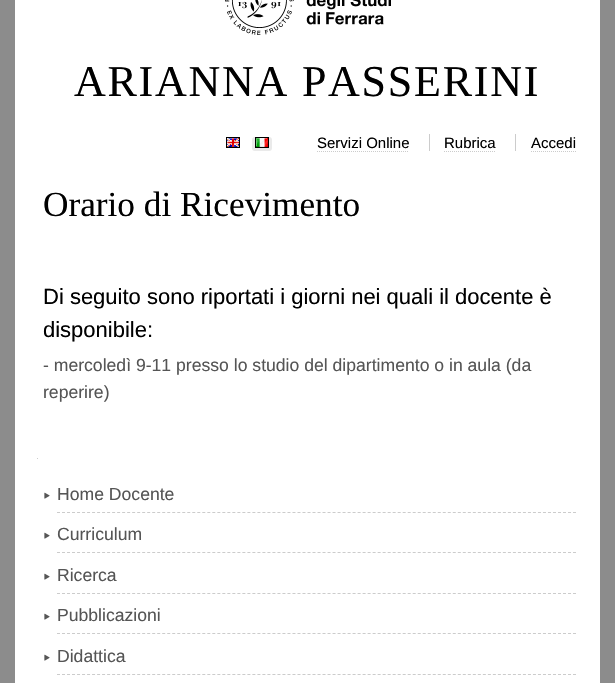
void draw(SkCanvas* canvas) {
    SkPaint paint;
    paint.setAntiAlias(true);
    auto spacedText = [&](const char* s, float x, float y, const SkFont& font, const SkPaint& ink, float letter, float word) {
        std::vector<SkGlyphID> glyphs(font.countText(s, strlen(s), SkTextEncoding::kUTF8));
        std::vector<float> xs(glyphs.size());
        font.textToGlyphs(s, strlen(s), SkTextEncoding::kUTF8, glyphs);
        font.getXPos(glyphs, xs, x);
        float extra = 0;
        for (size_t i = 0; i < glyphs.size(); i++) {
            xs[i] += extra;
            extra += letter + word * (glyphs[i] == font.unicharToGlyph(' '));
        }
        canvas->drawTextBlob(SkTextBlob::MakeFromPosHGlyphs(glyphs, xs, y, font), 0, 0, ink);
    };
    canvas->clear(0xFF8C8C8C);
    paint.setColor(0xFFFFFFFF);
    canvas->drawRect(SkRect::MakeXYWH(15, 0, 585, 683), paint);
    canvas->drawImageRect(SkImages::DeferredFromEncodedData(SkData::MakeFromFileName("img1.png")), SkRect::MakeXYWH(225, 0, 166, 35), SkSamplingOptions());
    SkFont font1(fontMgr->matchFamilyStyle("Liberation Serif", SkFontStyle::Normal()), 44);
    font1.setSubpixel(true);
    paint.setColor(0xFF000000);
    spacedText("ARIANNA PASSERINI", 74, 96, font1, paint, 1.75f, 0);
    canvas->drawImageRect(SkImages::DeferredFromEncodedData(SkData::MakeFromFileName("img2.png")), SkRect::MakeXYWH(226, 137, 14, 11), SkSamplingOptions());
    paint.setColor(0xFFEAEAEA);
    canvas->drawRoundRect(SkRect::MakeXYWH(252, 137, 20, 14), 3, 3, paint);
    canvas->drawImageRect(SkImages::DeferredFromEncodedData(SkData::MakeFromFileName("img3.png")), SkRect::MakeXYWH(255, 137, 14, 11), SkSamplingOptions());
    SkFont font2(fontMgr->matchFamilyStyle("Liberation Sans", SkFontStyle::Normal()), 15);
    font2.setSubpixel(true);
    paint.setColor(0xFF000000);
    canvas->drawString("Servizi Online", 317, 148, font2, paint);
    paint.setStyle(SkPaint::kStroke_Style);
    paint.setStrokeWidth(1);
    paint.setColor(0xFFCCCCCC);
    paint.setPathEffect(SkDashPathEffect::Make({{1, 1}}, 0));
    canvas->drawPath(SkPathBuilder().moveTo(317, 151.5f).lineTo(409, 151.5f).detach(), paint);
    paint.setPathEffect(nullptr);
    paint.setStyle(SkPaint::kFill_Style);
    paint.setColor(0xFF000000);
    canvas->drawString("Rubrica", 444, 148, font2, paint);
    paint.setColor(0xFFCCCCCC);
    canvas->drawRect(SkRect::MakeXYWH(429, 134, 1, 17), paint);
    paint.setStyle(SkPaint::kStroke_Style);
    paint.setPathEffect(SkDashPathEffect::Make({{1, 1}}, 0));
    canvas->drawPath(SkPathBuilder().moveTo(444, 151.5f).lineTo(496, 151.5f).detach(), paint);
    paint.setPathEffect(nullptr);
    paint.setStyle(SkPaint::kFill_Style);
    paint.setColor(0xFF000000);
    canvas->drawString("Accedi", 531, 148, font2, paint);
    paint.setColor(0xFFCCCCCC);
    canvas->drawRect(SkRect::MakeXYWH(515, 134, 1, 17), paint);
    paint.setStyle(SkPaint::kStroke_Style);
    paint.setPathEffect(SkDashPathEffect::Make({{1, 1}}, 0));
    canvas->drawPath(SkPathBuilder().moveTo(531, 151.5f).lineTo(576, 151.5f).detach(), paint);
    paint.setPathEffect(nullptr);
    SkFont font3(fontMgr->matchFamilyStyle("Liberation Serif", SkFontStyle::Normal()), 35.25f);
    font3.setSubpixel(true);
    paint.setStyle(SkPaint::kFill_Style);
    paint.setColor(0xFF000000);
    canvas->drawString("Orario di Ricevimento", 43, 216, font3, paint);
    SkFont font4(fontMgr->matchFamilyStyle("Liberation Sans", SkFontStyle::Normal()), 22);
    font4.setSubpixel(true);
    canvas->drawString("Di seguito sono riportati i giorni nei quali il docente è", 43, 304, font4, paint);
    canvas->drawString("disponibile:", 43, 337, font4, paint);
    SkFont font5(fontMgr->matchFamilyStyle("Liberation Sans", SkFontStyle::Normal()), 17.6f);
    font5.setSubpixel(true);
    paint.setColor(0xFF555555);
    canvas->drawString("- mercoledì 9-11 presso lo studio del dipartimento o in aula (da", 43, 371, font5, paint);
    canvas->drawString("reperire)", 43, 398, font5, paint);
    paint.setColor(0xFFCCCCCC);
    canvas->drawRect(SkRect::MakeXYWH(37, 458, 1, 1), paint);
    paint.setStyle(SkPaint::kStroke_Style);
    paint.setPathEffect(SkDashPathEffect::Make({{3, 2.01f}}, 0));
    canvas->drawPath(SkPathBuilder().moveTo(57, 512.5f).lineTo(576, 512.5f).detach(), paint);
    paint.setPathEffect(nullptr);
    canvas->drawImageRect(SkImages::DeferredFromEncodedData(SkData::MakeFromFileName("img4.png")), SkRect::MakeXYWH(44, 492, 6, 7), SkSamplingOptions());
    paint.setStyle(SkPaint::kFill_Style);
    paint.setColor(0xFF555555);
    canvas->drawString("Home Docente", 57, 500, font5, paint);
    paint.setStyle(SkPaint::kStroke_Style);
    paint.setColor(0xFFCCCCCC);
    paint.setPathEffect(SkDashPathEffect::Make({{3, 2.01f}}, 0));
    canvas->drawPath(SkPathBuilder().moveTo(57, 552.5f).lineTo(576, 552.5f).detach(), paint);
    paint.setPathEffect(nullptr);
    canvas->drawImageRect(SkImages::DeferredFromEncodedData(SkData::MakeFromFileName("img4.png")), SkRect::MakeXYWH(44, 532, 6, 7), SkSamplingOptions());
    paint.setStyle(SkPaint::kFill_Style);
    paint.setColor(0xFF555555);
    canvas->drawString("Curriculum", 57, 540, font5, paint);
    paint.setStyle(SkPaint::kStroke_Style);
    paint.setColor(0xFFCCCCCC);
    paint.setPathEffect(SkDashPathEffect::Make({{3, 2.01f}}, 0));
    canvas->drawPath(SkPathBuilder().moveTo(57, 593.5f).lineTo(576, 593.5f).detach(), paint);
    paint.setPathEffect(nullptr);
    canvas->drawImageRect(SkImages::DeferredFromEncodedData(SkData::MakeFromFileName("img4.png")), SkRect::MakeXYWH(44, 573, 6, 7), SkSamplingOptions());
    paint.setStyle(SkPaint::kFill_Style);
    paint.setColor(0xFF555555);
    canvas->drawString("Ricerca", 57, 581, font5, paint);
    paint.setStyle(SkPaint::kStroke_Style);
    paint.setColor(0xFFCCCCCC);
    paint.setPathEffect(SkDashPathEffect::Make({{3, 2.01f}}, 0));
    canvas->drawPath(SkPathBuilder().moveTo(57, 633.5f).lineTo(576, 633.5f).detach(), paint);
    paint.setPathEffect(nullptr);
    canvas->drawImageRect(SkImages::DeferredFromEncodedData(SkData::MakeFromFileName("img4.png")), SkRect::MakeXYWH(44, 613, 6, 7), SkSamplingOptions());
    paint.setStyle(SkPaint::kFill_Style);
    paint.setColor(0xFF555555);
    canvas->drawString("Pubblicazioni", 57, 621, font5, paint);
    paint.setStyle(SkPaint::kStroke_Style);
    paint.setColor(0xFFCCCCCC);
    paint.setPathEffect(SkDashPathEffect::Make({{3, 2.01f}}, 0));
    canvas->drawPath(SkPathBuilder().moveTo(57, 674.5f).lineTo(576, 674.5f).detach(), paint);
    paint.setPathEffect(nullptr);
    canvas->drawImageRect(SkImages::DeferredFromEncodedData(SkData::MakeFromFileName("img4.png")), SkRect::MakeXYWH(44, 654, 6, 7), SkSamplingOptions());
    paint.setStyle(SkPaint::kFill_Style);
    paint.setColor(0xFF555555);
    canvas->drawString("Didattica", 57, 662, font5, paint);
}
